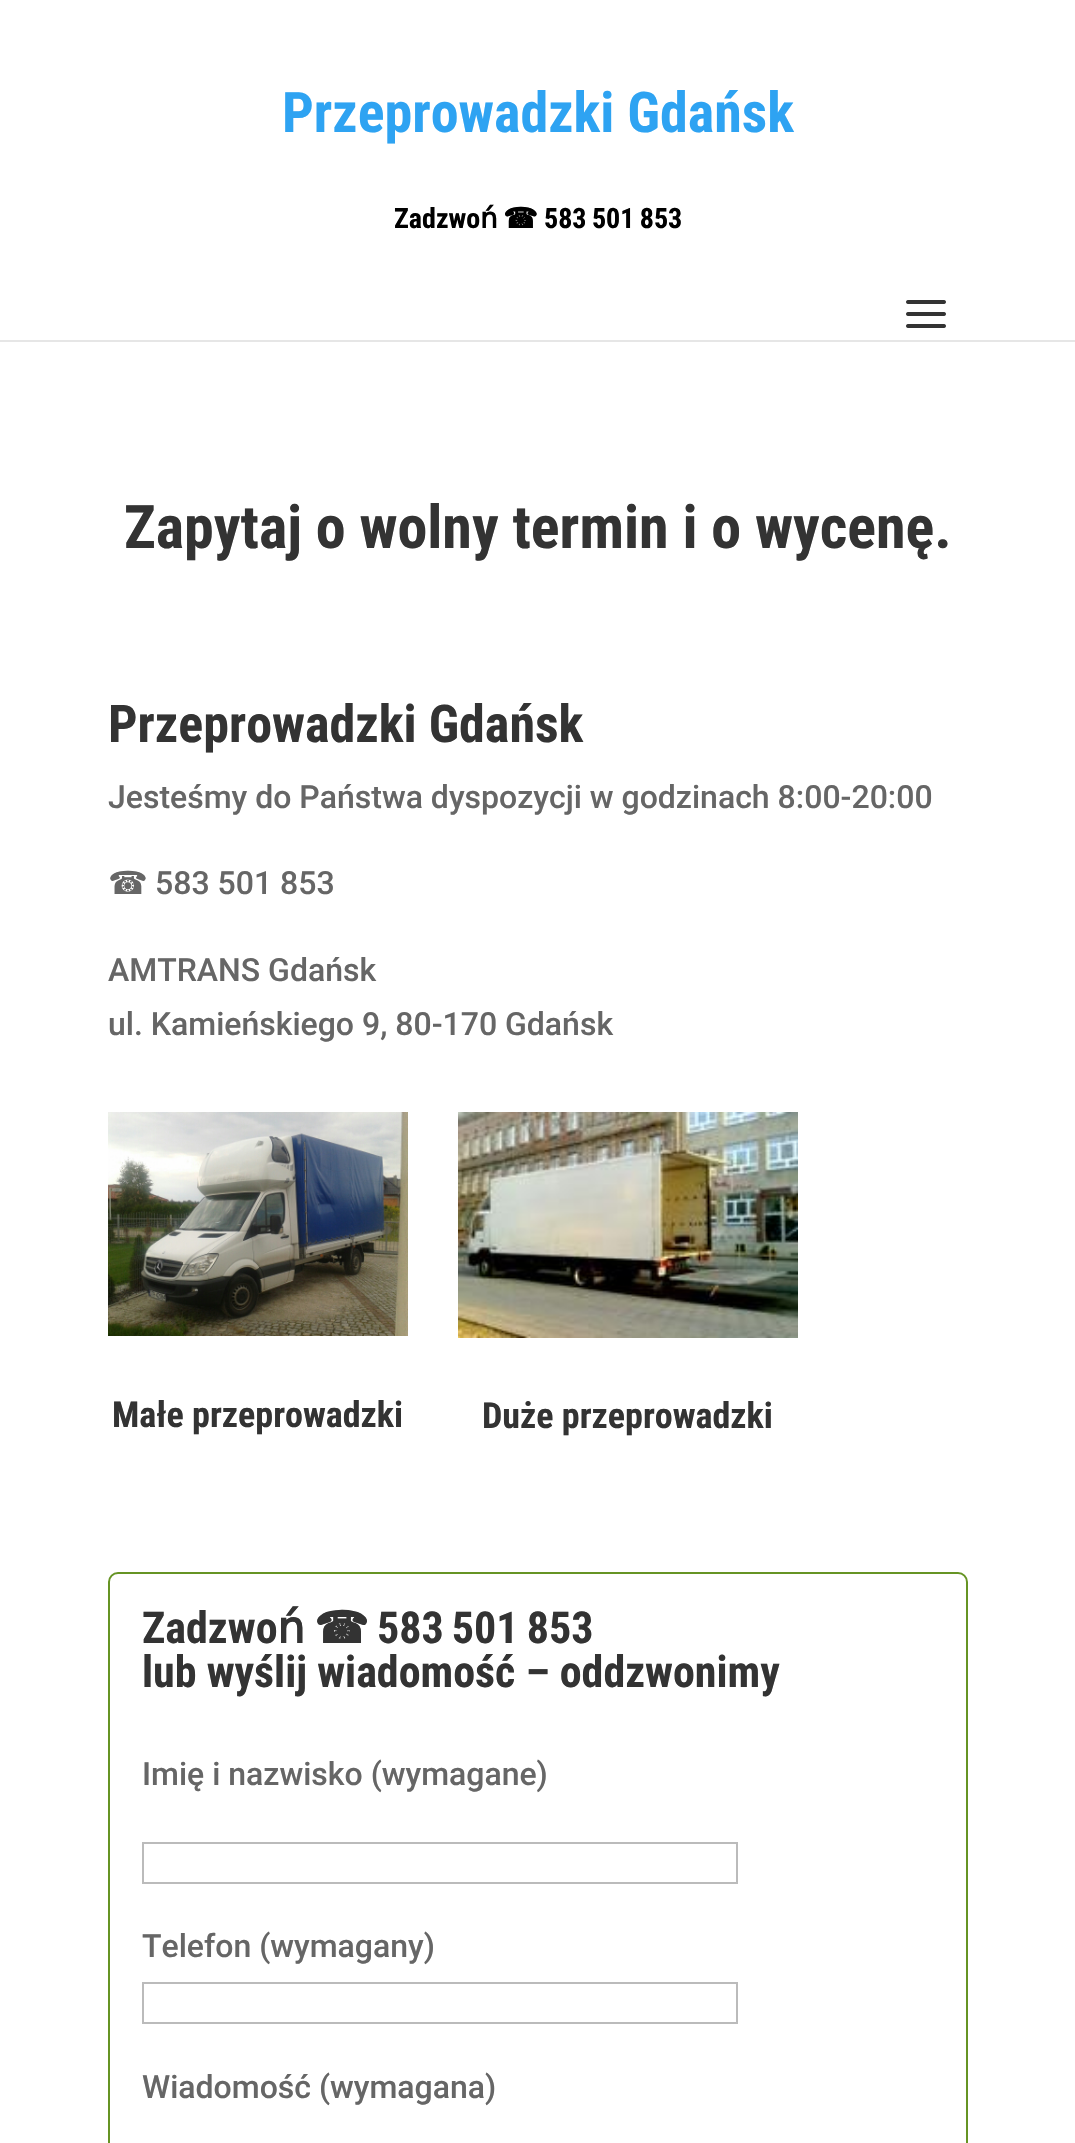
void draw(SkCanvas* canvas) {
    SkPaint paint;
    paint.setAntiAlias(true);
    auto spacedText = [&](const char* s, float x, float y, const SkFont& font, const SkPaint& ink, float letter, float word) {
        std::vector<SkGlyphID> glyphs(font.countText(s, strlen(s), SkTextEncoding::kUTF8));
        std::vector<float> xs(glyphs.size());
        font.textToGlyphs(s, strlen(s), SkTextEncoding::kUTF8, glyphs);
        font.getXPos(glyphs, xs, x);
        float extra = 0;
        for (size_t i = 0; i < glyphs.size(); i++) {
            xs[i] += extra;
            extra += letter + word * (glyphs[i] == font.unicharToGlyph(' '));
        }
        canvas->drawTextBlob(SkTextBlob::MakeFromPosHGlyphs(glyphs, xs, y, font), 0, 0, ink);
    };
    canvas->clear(0xFFFFFFFF);
    paint.setColor(0xFFE6E6E6);
    canvas->drawRect(SkRect::MakeXYWH(0, 340, 1075, 2), paint);
    SkFont font1(fontMgr->matchFamilyStyle("Roboto Condensed", SkFontStyle::Bold()), 56);
    font1.setSubpixel(true);
    paint.setColor(0xFF2EA3F2);
    canvas->drawString("Przeprowadzki Gdańsk", 282, 132, font1, paint);
    SkFont font2(fontMgr->matchFamilyStyle("Roboto Condensed", SkFontStyle::Bold()), 28);
    font2.setSubpixel(true);
    paint.setColor(0xFF000000);
    canvas->drawString("Zadzwo", 394, 228, font2, paint);
    SkFont font3(fontMgr->matchFamilyStyle("DejaVu Sans", SkFontStyle::Bold()), 28);
    font3.setSubpixel(true);
    canvas->drawString("ń", 480, 228, font3, paint);
    canvas->drawString("☎", 503, 228, font3, paint);
    spacedText("583 501 853", 544, 228, font2, paint, 0, -1);
    canvas->drawImageRect(SkImages::DeferredFromEncodedData(SkData::MakeFromFileName("img1.png")), SkRect::MakeXYWH(906, 300, 40, 28), SkSamplingOptions());
    SkFont font4(fontMgr->matchFamilyStyle("Roboto Condensed", SkFontStyle::Bold()), 60);
    font4.setSubpixel(true);
    paint.setColor(0xFF333333);
    canvas->drawString("Zapytaj o wolny termin i o wycenę.", 124, 548, font4, paint);
    SkFont font5(fontMgr->matchFamilyStyle("Roboto Condensed", SkFontStyle::Bold()), 52);
    font5.setSubpixel(true);
    canvas->drawString("Przeprowadzki Gdańsk", 108, 742, font5, paint);
    SkFont font6(fontMgr->matchFamilyStyle("Roboto", SkFontStyle(500, SkFontStyle::kNormal_Width, SkFontStyle::kUpright_Slant)), 32);
    font6.setSubpixel(true);
    paint.setColor(0xFF666666);
    canvas->drawString("Jesteśmy do Państwa dyspozycji w godzinach 8:00-20:00", 108, 808, font6, paint);
    SkFont font7(fontMgr->matchFamilyStyle("DejaVu Sans", SkFontStyle::Normal()), 32);
    font7.setSubpixel(true);
    canvas->drawString("☎", 108, 894, font7, paint);
    canvas->drawString("583 501 853", 155, 894, font6, paint);
    canvas->drawString("AMTRANS Gdańsk", 108, 981, font6, paint);
    canvas->drawString("ul. Kamieńskiego 9, 80-170 Gdańsk", 108, 1035, font6, paint);
    canvas->drawImageRect(SkImages::DeferredFromEncodedData(SkData::MakeFromFileName("img2.png")), SkRect::MakeXYWH(108, 1112, 300, 224), SkSamplingOptions());
    SkFont font8(fontMgr->matchFamilyStyle("Roboto Condensed", SkFontStyle::Bold()), 36);
    font8.setSubpixel(true);
    paint.setColor(0xFF333333);
    canvas->drawString("Małe przeprowadzki", 112, 1427, font8, paint);
    canvas->drawImageRect(SkImages::DeferredFromEncodedData(SkData::MakeFromFileName("img3.png")), SkRect::MakeXYWH(458, 1112, 340, 226), SkSamplingOptions());
    canvas->drawString("Duże przeprowadzki", 482, 1428, font8, paint);
    paint.setStyle(SkPaint::kStroke_Style);
    paint.setStrokeWidth(2);
    paint.setColor(0xFF669424);
    canvas->drawRoundRect(SkRect::MakeXYWH(109, 1573, 858, 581), 9, 9, paint);
    SkFont font9(fontMgr->matchFamilyStyle("Roboto Condensed", SkFontStyle::Bold()), 44);
    font9.setSubpixel(true);
    paint.setStyle(SkPaint::kFill_Style);
    paint.setColor(0xFF333333);
    canvas->drawString("Zadzwo", 142, 1643, font9, paint);
    SkFont font10(fontMgr->matchFamilyStyle("DejaVu Sans", SkFontStyle::Bold()), 44);
    font10.setSubpixel(true);
    canvas->drawString("ń", 277, 1643, font10, paint);
    canvas->drawString("☎", 314, 1643, font10, paint);
    spacedText("583 501 853", 377, 1643, font9, paint, 0, -2);
    canvas->drawString("lub wyślij wiadomość – oddzwonimy", 142, 1687, font9, paint);
    paint.setColor(0xFF666666);
    canvas->drawString("Imię i nazwisko (wymagane)", 142, 1785, font6, paint);
    paint.setStyle(SkPaint::kStroke_Style);
    paint.setColor(0xFFBBBBBB);
    canvas->drawRect(SkRect::MakeXYWH(143, 1843, 594, 40), paint);
    paint.setStyle(SkPaint::kFill_Style);
    paint.setColor(0xFF666666);
    canvas->drawString("Telefon (wymagany)", 142, 1957, font6, paint);
    paint.setStyle(SkPaint::kStroke_Style);
    paint.setColor(0xFFBBBBBB);
    canvas->drawRect(SkRect::MakeXYWH(143, 1983, 594, 40), paint);
    paint.setStyle(SkPaint::kFill_Style);
    paint.setColor(0xFF666666);
    canvas->drawString("Wiadomość (wymagana)", 142, 2098, font6, paint);
}
